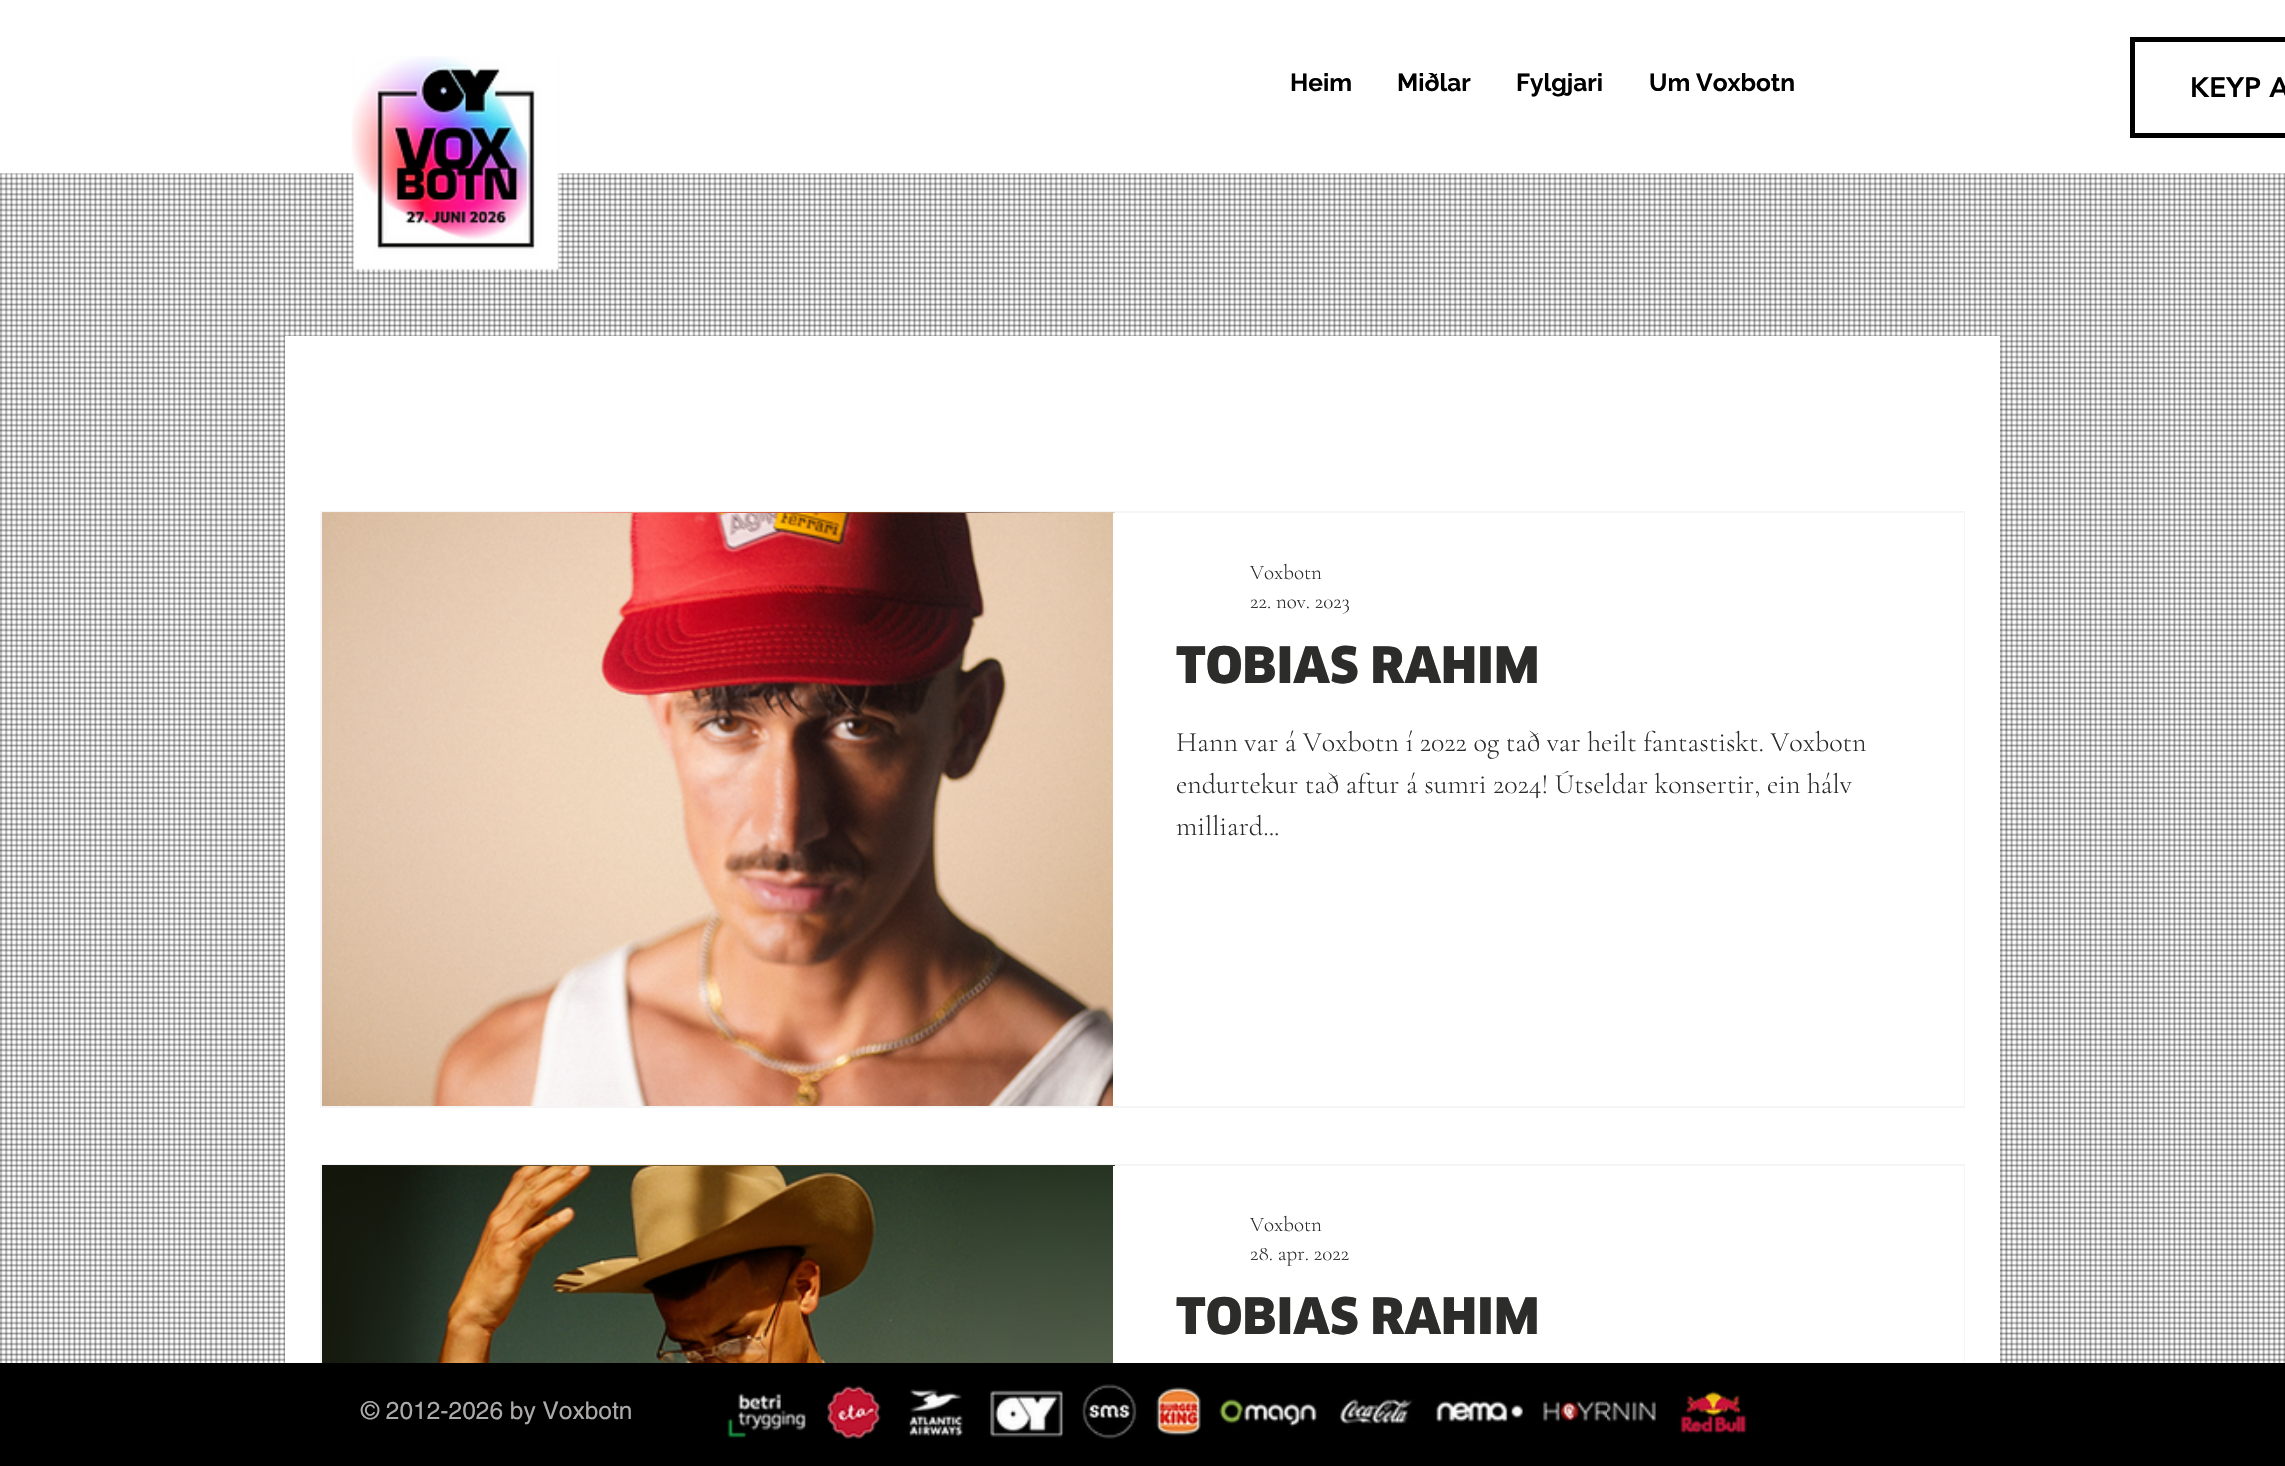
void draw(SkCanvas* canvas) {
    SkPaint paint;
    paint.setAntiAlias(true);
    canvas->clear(0xFFFFFFFF);
    canvas->drawImageRect(SkImages::DeferredFromEncodedData(SkData::MakeFromFileName("img2.png")), SkRect::MakeXYWH(0, 173, 2285, 1190), SkSamplingOptions());
    canvas->drawImageRect(SkImages::DeferredFromEncodedData(SkData::MakeFromFileName("img1.png")), SkRect::MakeXYWH(351, 56, 209, 215), SkSamplingOptions());
    SkFont font1(fontMgr->matchFamilyStyle("Raleway", SkFontStyle::Bold()), 24.5f);
    font1.setSubpixel(true);
    paint.setColor(0xFF000000);
    canvas->drawString("Heim", 1290, 91, font1, paint);
    canvas->drawString("Miðlar", 1397, 91, font1, paint);
    canvas->drawString("Fylgjari", 1516, 91, font1, paint);
    canvas->drawString("Um Voxbotn", 1649, 91, font1, paint);
    paint.setStyle(SkPaint::kStroke_Style);
    paint.setStrokeWidth(5);
    canvas->drawRect(SkRect::MakeXYWH(2132.5f, 39.5f, 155, 96), paint);
    SkFont font2(fontMgr->matchFamilyStyle("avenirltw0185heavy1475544", SkFontStyle(900, SkFontStyle::kNormal_Width, SkFontStyle::kUpright_Slant)), 28);
    font2.setSubpixel(true);
    paint.setStyle(SkPaint::kFill_Style);
    canvas->drawString("KEYP A", 2190, 97, font2, paint);
    paint.setColor(0xFFFFFFFF);
    canvas->drawRect(SkRect::MakeXYWH(285, 336, 1715, 1027), paint);
    paint.setStyle(SkPaint::kStroke_Style);
    paint.setStrokeWidth(2);
    paint.setColor(0xFFF5F5F5);
    canvas->drawRect(SkRect::MakeXYWH(321, 512, 1643, 595), paint);
    canvas->drawImageRect(SkImages::DeferredFromEncodedData(SkData::MakeFromFileName("img3.png")), SkRect::MakeXYWH(322, 512, 793, 1), SkSamplingOptions());
    canvas->drawImageRect(SkImages::DeferredFromEncodedData(SkData::MakeFromFileName("img4.png")), SkRect::MakeXYWH(322, 513, 791, 593), SkSamplingOptions());
    paint.setStyle(SkPaint::kFill_Style);
    paint.setColor(0xFFFFFFFF);
    canvas->drawRect(SkRect::MakeXYWH(1963, 513, 1, 593), paint);
    SkFont font3(fontMgr->matchFamilyStyle("Cormorant Garamond", SkFontStyle(300, SkFontStyle::kNormal_Width, SkFontStyle::kUpright_Slant)), 21);
    font3.setSubpixel(true);
    paint.setColor(0xFF2C2C2B);
    canvas->drawString("Voxbotn", 1250, 579, font3, paint);
    canvas->drawString("22. nov. 2023", 1250, 608, font3, paint);
    SkFont font4(fontMgr->matchFamilyStyle("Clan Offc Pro", SkFontStyle(900, SkFontStyle::kNormal_Width, SkFontStyle::kUpright_Slant)), 49);
    font4.setSubpixel(true);
    canvas->drawString("TOBIAS RAHIM", 1176, 683, font4, paint);
    SkFont font5(fontMgr->matchFamilyStyle("Cormorant Garamond", SkFontStyle(300, SkFontStyle::kNormal_Width, SkFontStyle::kUpright_Slant)), 28);
    font5.setSubpixel(true);
    canvas->drawString("Hann var á Voxbotn í 2022 og tað var heilt fantastiskt. Voxbotn", 1176, 751, font5, paint);
    canvas->drawString("endurtekur tað aftur á sumri 2024! Útseldar konsertir, ein hálv", 1176, 793, font5, paint);
    canvas->drawString("milliard...", 1176, 835, font5, paint);
    paint.setStyle(SkPaint::kStroke_Style);
    paint.setColor(0xFFF5F5F5);
    canvas->drawRect(SkRect::MakeXYWH(321, 1165, 1643, 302), paint);
    canvas->drawImageRect(SkImages::DeferredFromEncodedData(SkData::MakeFromFileName("img5.png")), SkRect::MakeXYWH(322, 1165, 793, 1), SkSamplingOptions());
    canvas->drawImageRect(SkImages::DeferredFromEncodedData(SkData::MakeFromFileName("img6.png")), SkRect::MakeXYWH(322, 1166, 791, 197), SkSamplingOptions());
    paint.setStyle(SkPaint::kFill_Style);
    paint.setColor(0xFFFFFFFF);
    canvas->drawRect(SkRect::MakeXYWH(1963, 1166, 1, 197), paint);
    paint.setColor(0xFF2C2C2B);
    canvas->drawString("Voxbotn", 1250, 1231, font3, paint);
    canvas->drawString("28. apr. 2022", 1250, 1260, font3, paint);
    canvas->drawString("TOBIAS RAHIM", 1176, 1334, font4, paint);
    paint.setColor(0xFF000000);
    canvas->drawRect(SkRect::MakeXYWH(0, 1363, 2285, 103), paint);
    SkFont font6(fontMgr->matchFamilyStyle("helvetica", SkFontStyle::Normal()), 24.5f);
    font6.setSubpixel(true);
    paint.setColor(0xFFACA9A9);
    canvas->drawString("© 2012-2026 by Voxbotn", 361, 1419, font6, paint);
    canvas->drawImageRect(SkImages::DeferredFromEncodedData(SkData::MakeFromFileName("img7.png")), SkRect::MakeXYWH(727, 1384, 1020, 55), SkSamplingOptions());
}
